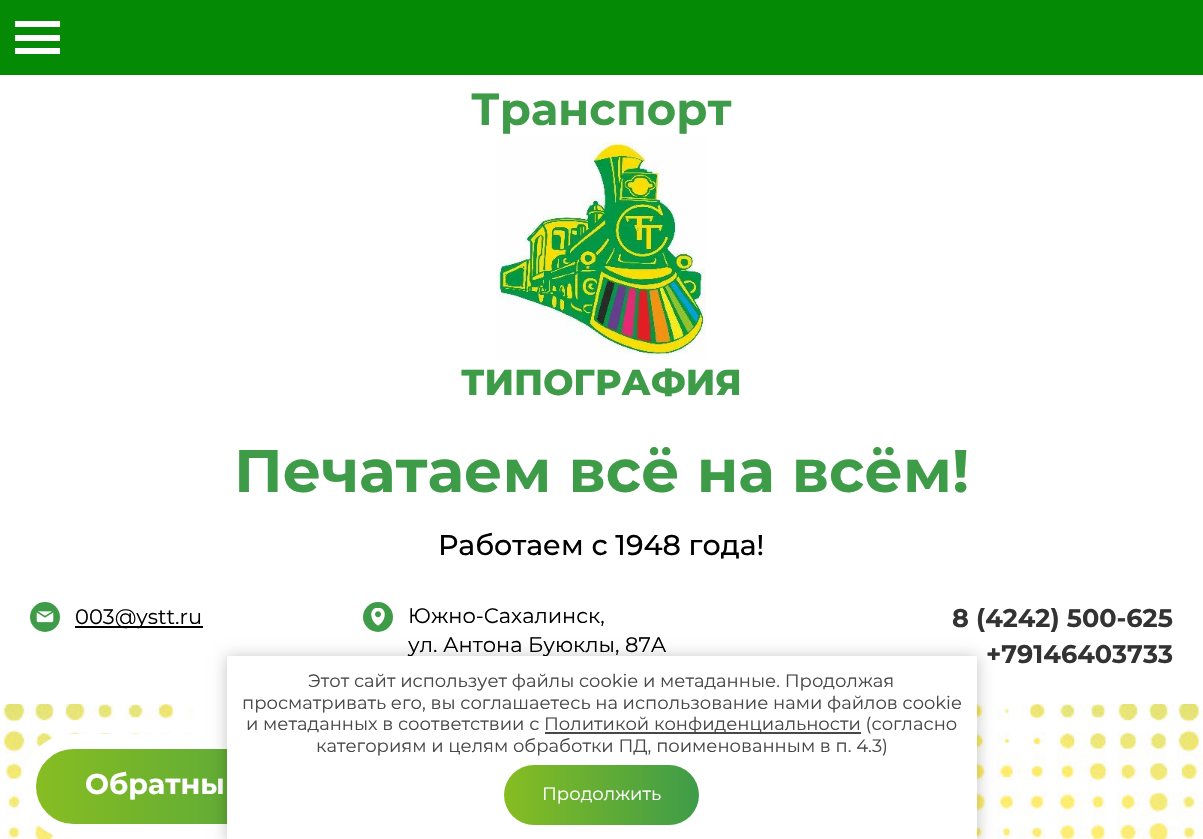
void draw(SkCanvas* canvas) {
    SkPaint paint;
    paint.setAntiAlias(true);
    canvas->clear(0xFFFFFFFF);
    canvas->drawImageRect(SkImages::DeferredFromEncodedData(SkData::MakeFromFileName("img1.png")), SkRect::MakeXYWH(0, 704, 1203, 135), SkSamplingOptions());
    paint.setColor(0xFF058A05);
    canvas->drawRect(SkRect::MakeXYWH(0, 0, 1203, 75), paint);
    paint.setColor(0xFFFFFFFF);
    canvas->drawRect(SkRect::MakeXYWH(15, 21, 45, 6), paint);
    canvas->drawRect(SkRect::MakeXYWH(15, 35, 45, 6), paint);
    canvas->drawRect(SkRect::MakeXYWH(15, 48, 45, 6), paint);
    SkFont font1(fontMgr->matchFamilyStyle("Montserrat", SkFontStyle::Bold()), 45);
    font1.setSubpixel(true);
    paint.setColor(0xFF3E9C48);
    canvas->drawString("Транспорт", 471, 125, font1, paint);
    canvas->drawImageRect(SkImages::DeferredFromEncodedData(SkData::MakeFromFileName("img2.png")), SkRect::MakeXYWH(496, 137, 210, 224), SkSamplingOptions());
    SkFont font2(fontMgr->matchFamilyStyle("Montserrat", SkFontStyle(800, SkFontStyle::kNormal_Width, SkFontStyle::kUpright_Slant)), 36);
    font2.setSubpixel(true);
    canvas->drawString("ТИПОГРАФИЯ", 461, 395, font2, paint);
    SkFont font3(fontMgr->matchFamilyStyle("Montserrat", SkFontStyle::Bold()), 60);
    font3.setSubpixel(true);
    canvas->drawString("Печатаем всё на всём!", 234, 492, font3, paint);
    SkFont font4(fontMgr->matchFamilyStyle("Montserrat", SkFontStyle(500, SkFontStyle::kNormal_Width, SkFontStyle::kUpright_Slant)), 28.5f);
    font4.setSubpixel(true);
    paint.setColor(0xFF000000);
    canvas->drawString("Работаем с 1948 года!", 438, 555, font4, paint);
    paint.setColor(0xFF3E9C48);
    canvas->drawCircle(45, 617, 15, paint);
    canvas->drawImageRect(SkImages::DeferredFromEncodedData(SkData::MakeFromFileName("img3.png")), SkRect::MakeXYWH(36, 611, 18, 12), SkSamplingOptions());
    paint.setColor(0xFF000000);
    canvas->drawRect(SkRect::MakeXYWH(75, 626, 128, 2), paint);
    SkFont font5(fontMgr->matchFamilyStyle("Montserrat", SkFontStyle::Normal()), 21);
    font5.setSubpixel(true);
    canvas->drawString("003@ystt.ru", 75, 624, font5, paint);
    paint.setColor(0xFF3E9C48);
    canvas->drawCircle(378, 617, 15, paint);
    canvas->drawImageRect(SkImages::DeferredFromEncodedData(SkData::MakeFromFileName("img4.png")), SkRect::MakeXYWH(371, 608, 14, 18), SkSamplingOptions());
    paint.setColor(0xFF000000);
    canvas->drawString("Южно-Сахалинск,", 408, 623, font5, paint);
    canvas->drawString("ул. Антона Буюклы, 87А", 408, 652, font5, paint);
    SkFont font6(fontMgr->matchFamilyStyle("Montserrat", SkFontStyle::Bold()), 25.5f);
    font6.setSubpixel(true);
    paint.setColor(0xFF333333);
    canvas->drawString("8 (4242) 500-625", 952, 627, font6, paint);
    canvas->drawString("+79146403733", 986, 663, font6, paint);
    paint.setStyle(SkPaint::kStroke_Style);
    paint.setStrokeWidth(15);
    paint.setColor(0xFFFFFFFF);
    canvas->drawRoundRect(SkRect::MakeXYWH(28.5f, 741.5f, 390, 90), 45, 45, paint);
    paint.setStyle(SkPaint::kFill_Style);
    {
        const SkColor colors[] = {0xFF87BD22, 0xFF3E9C48};
        const float stops[] = {0, 1};
        const SkPoint ends[] = {{36, 786}, {411, 786}};
        paint.setShader(SkGradientShader::MakeLinear(ends, colors, stops, 2, SkTileMode::kClamp));
        paint.setAlpha(255);
    }
    canvas->drawRoundRect(SkRect::MakeXYWH(36, 749, 375, 75), 37.5f, 37.5f, paint);
    SkFont font7(fontMgr->matchFamilyStyle("Montserrat", SkFontStyle::Bold()), 28.5f);
    font7.setSubpixel(true);
    paint.setShader(nullptr);
    paint.setColor(0xFFFFFFFF);
    canvas->drawString("Обратны", 85, 794, font7, paint);
    paint.setColor(0x3B000000);
    paint.setMaskFilter(SkMaskFilter::MakeBlur(kNormal_SkBlurStyle, 7.5f));
    canvas->drawRect(SkRect::MakeXYWH(227, 657, 750, 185), paint);
    paint.setMaskFilter(nullptr);
    paint.setColor(0xFFFFFFFF);
    canvas->drawRect(SkRect::MakeXYWH(227, 656, 750, 183), paint);
    SkFont font8(fontMgr->matchFamilyStyle("Montserrat", SkFontStyle::Normal()), 18);
    font8.setSubpixel(true);
    paint.setColor(0xFF484848);
    canvas->drawString("Этот сайт использует файлы cookie и метаданные. Продолжая", 308, 687, font8, paint);
    canvas->drawString("просматривать его, вы соглашаетесь на использование нами файлов cookie", 242, 709, font8, paint);
    canvas->drawString("и метаданных в соответствии с", 246, 730, font8, paint);
    canvas->drawRect(SkRect::MakeXYWH(545, 732, 316, 2), paint);
    canvas->drawString("Политикой конфиденциальности (согласно", 544, 730, font8, paint);
    canvas->drawString("категориям и целям обработки ПД, поименованным в п. 4.3)", 316, 752, font8, paint);
    {
        const SkColor colors[] = {0xFF87BD22, 0xFF3E9C48};
        const float stops[] = {0, 1};
        const SkPoint ends[] = {{504, 795}, {699, 795}};
        paint.setShader(SkGradientShader::MakeLinear(ends, colors, stops, 2, SkTileMode::kClamp));
        paint.setAlpha(255);
    }
    canvas->drawRoundRect(SkRect::MakeXYWH(504, 765, 195, 60), 30, 30, paint);
    paint.setShader(nullptr);
    paint.setColor(0xFFFFFFFF);
    canvas->drawString("Продолжить", 542, 800, font8, paint);
}
